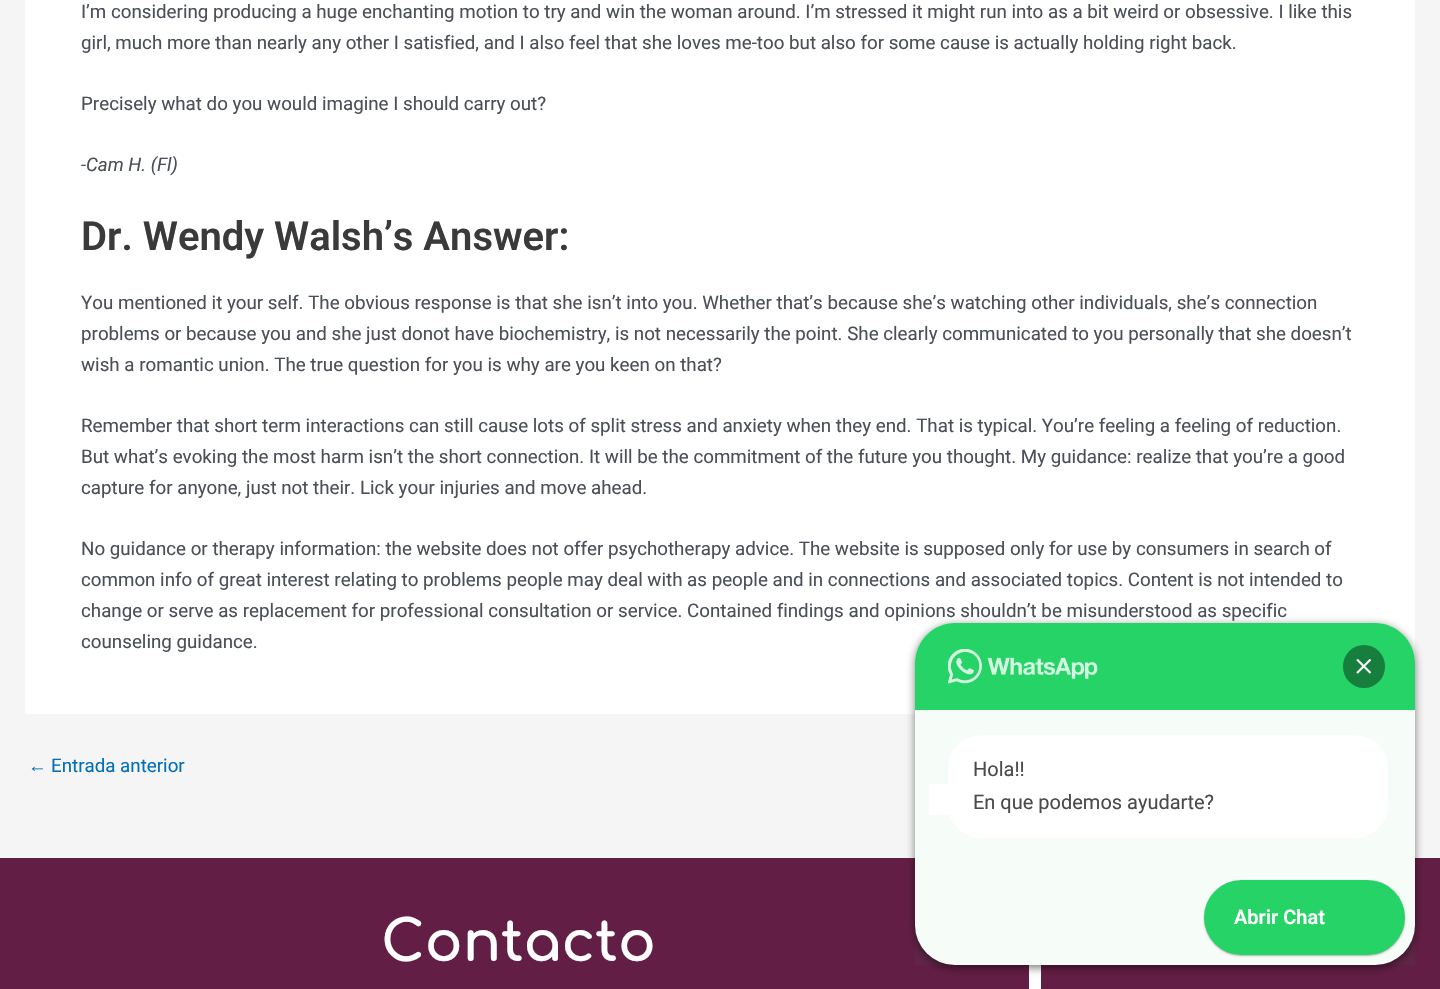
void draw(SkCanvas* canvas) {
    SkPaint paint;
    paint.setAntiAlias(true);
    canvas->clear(0xFFF5F5F5);
    paint.setColor(0xFFFFFFFF);
    canvas->drawRect(SkRect::MakeXYWH(25, 0, 1390, 714), paint);
    SkFont font1(fontMgr->matchFamilyStyle("Roboto", SkFontStyle::Normal()), 18.75f);
    font1.setSubpixel(true);
    paint.setColor(0xFF4B4F58);
    canvas->drawString("I’m considering producing a huge enchanting motion to try and win the woman around. I’m stressed it might run into as a bit weird or obsessive. I like this", 81, 18, font1, paint);
    canvas->drawString("girl, much more than nearly any other I satisfied, and I also feel that she loves me-too but also for some cause is actually holding right back.", 81, 49, font1, paint);
    canvas->drawString("Precisely what do you would imagine I should carry out?", 81, 110, font1, paint);
    SkFont font2(fontMgr->matchFamilyStyle("Roboto", SkFontStyle::Italic()), 18.75f);
    font2.setSubpixel(true);
    canvas->drawString("-Cam H. (Fl)", 81, 171, font2, paint);
    SkFont font3(fontMgr->matchFamilyStyle("Roboto", SkFontStyle(600, SkFontStyle::kNormal_Width, SkFontStyle::kUpright_Slant)), 40);
    font3.setSubpixel(true);
    paint.setColor(0xFF3A3A3A);
    canvas->drawString("Dr. Wendy Walsh’s Answer:", 81, 250, font3, paint);
    paint.setColor(0xFF4B4F58);
    canvas->drawString("You mentioned it your self. The obvious response is that she isn’t into you. Whether that’s because she’s watching other individuals, she’s connection", 81, 309, font1, paint);
    canvas->drawString("problems or because you and she just donot have biochemistry, is not necessarily the point. She clearly communicated to you personally that she doesn’t", 81, 340, font1, paint);
    canvas->drawString("wish a romantic union. The true question for you is why are you keen on that?", 81, 371, font1, paint);
    canvas->drawString("Remember that short term interactions can still cause lots of split stress and anxiety when they end. That is typical. You’re feeling a feeling of reduction.", 81, 432, font1, paint);
    canvas->drawString("But what’s evoking the most harm isn’t the short connection. It will be the commitment of the future you thought. My guidance: realize that you’re a good", 81, 463, font1, paint);
    canvas->drawString("capture for anyone, just not their. Lick your injuries and move ahead.", 81, 494, font1, paint);
    canvas->drawString("No guidance or therapy information: the website does not offer psychotherapy advice. The website is supposed only for use by consumers in search of", 81, 555, font1, paint);
    canvas->drawString("common info of great interest relating to problems people may deal with as people and in connections and associated topics. Content is not intended to", 81, 586, font1, paint);
    canvas->drawString("change or serve as replacement for professional consultation or service. Contained findings and opinions shouldn’t be misunderstood as specific", 81, 617, font1, paint);
    canvas->drawString("counseling guidance.", 81, 648, font1, paint);
    SkFont font4(fontMgr->matchFamilyStyle("Liberation Sans", SkFontStyle::Normal()), 18.75f);
    font4.setSubpixel(true);
    paint.setColor(0xFF0170B9);
    canvas->drawString("←", 28, 772, font4, paint);
    canvas->drawString("Entrada anterior", 51, 772, font1, paint);
    paint.setColor(0xFF631E45);
    canvas->drawRect(SkRect::MakeXYWH(0, 858, 1440, 131), paint);
    paint.setColor(0xFFFFFFFF);
    canvas->drawRect(SkRect::MakeXYWH(1029, 965, 12, 24), paint);
    SkFont font5(fontMgr->matchFamilyStyle("Comfortaa", SkFontStyle::Bold()), 56.25f);
    font5.setSubpixel(true);
    canvas->drawString("Contacto", 381, 961, font5, paint);
    paint.setColor(0x80000000);
    paint.setMaskFilter(SkMaskFilter::MakeBlur(kNormal_SkBlurStyle, 4));
    canvas->drawRoundRect(SkRect::MakeXYWH(915, 625, 500, 343), 40, 40, paint);
    paint.setMaskFilter(nullptr);
    paint.setColor(0xFFFFFFFF);
    canvas->drawRoundRect(SkRect::MakeXYWH(915, 623, 500, 342), 40, 40, paint);
    paint.setColor(0xFF25D366);
    canvas->drawPath(SkPathBuilder().moveTo(955, 623).lineTo(1375, 623).cubicTo(1397, 623, 1415, 641, 1415, 663).lineTo(1415, 710).lineTo(915, 710).lineTo(915, 663).cubicTo(915, 641, 933, 623, 955, 623).close().detach(), paint);
    paint.setColor(0x0A25D366);
    canvas->drawRect(SkRect::MakeXYWH(915, 710, 500, 255), paint);
    canvas->drawImageRect(SkImages::DeferredFromEncodedData(SkData::MakeFromFileName("img1.png")), SkRect::MakeXYWH(948, 649, 150, 35), SkSamplingOptions());
    paint.setColor(0xFF167F3D);
    canvas->drawRoundRect(SkRect::MakeXYWH(1343, 645, 42, 43), 21, 21, paint);
    canvas->drawImageRect(SkImages::DeferredFromEncodedData(SkData::MakeFromFileName("img2.png")), SkRect::MakeXYWH(1356, 659, 15, 15), SkSamplingOptions());
    paint.setColor(0xFFFFFFFF);
    canvas->drawRoundRect(SkRect::MakeXYWH(948, 735, 440, 103), 33, 33, paint);
    SkFont font6(fontMgr->matchFamilyStyle("Roboto", SkFontStyle::Normal()), 20);
    font6.setSubpixel(true);
    paint.setColor(0xFF4A4A4A);
    canvas->drawString("Hola!!", 973, 776, font6, paint);
    paint.setColor(0xFFFFFFFF);
    canvas->drawRect(SkRect::MakeXYWH(929, 784, 21, 31), paint);
    paint.setColor(0xFF4A4A4A);
    canvas->drawString("En que podemos ayudarte?", 973, 809, font6, paint);
    paint.setColor(0x4D000000);
    paint.setMaskFilter(SkMaskFilter::MakeBlur(kNormal_SkBlurStyle, 1));
    canvas->drawRoundRect(SkRect::MakeXYWH(1204, 881, 201, 75), 37.5f, 37.5f, paint);
    paint.setMaskFilter(nullptr);
    paint.setColor(0xFF25D366);
    canvas->drawRoundRect(SkRect::MakeXYWH(1204, 880, 201, 75), 37.5f, 37.5f, paint);
    SkFont font7(fontMgr->matchFamilyStyle("Roboto", SkFontStyle(600, SkFontStyle::kNormal_Width, SkFontStyle::kUpright_Slant)), 20);
    font7.setSubpixel(true);
    paint.setColor(0xFFFFFFFF);
    canvas->drawString("Abrir Chat", 1234, 924, font7, paint);
}
